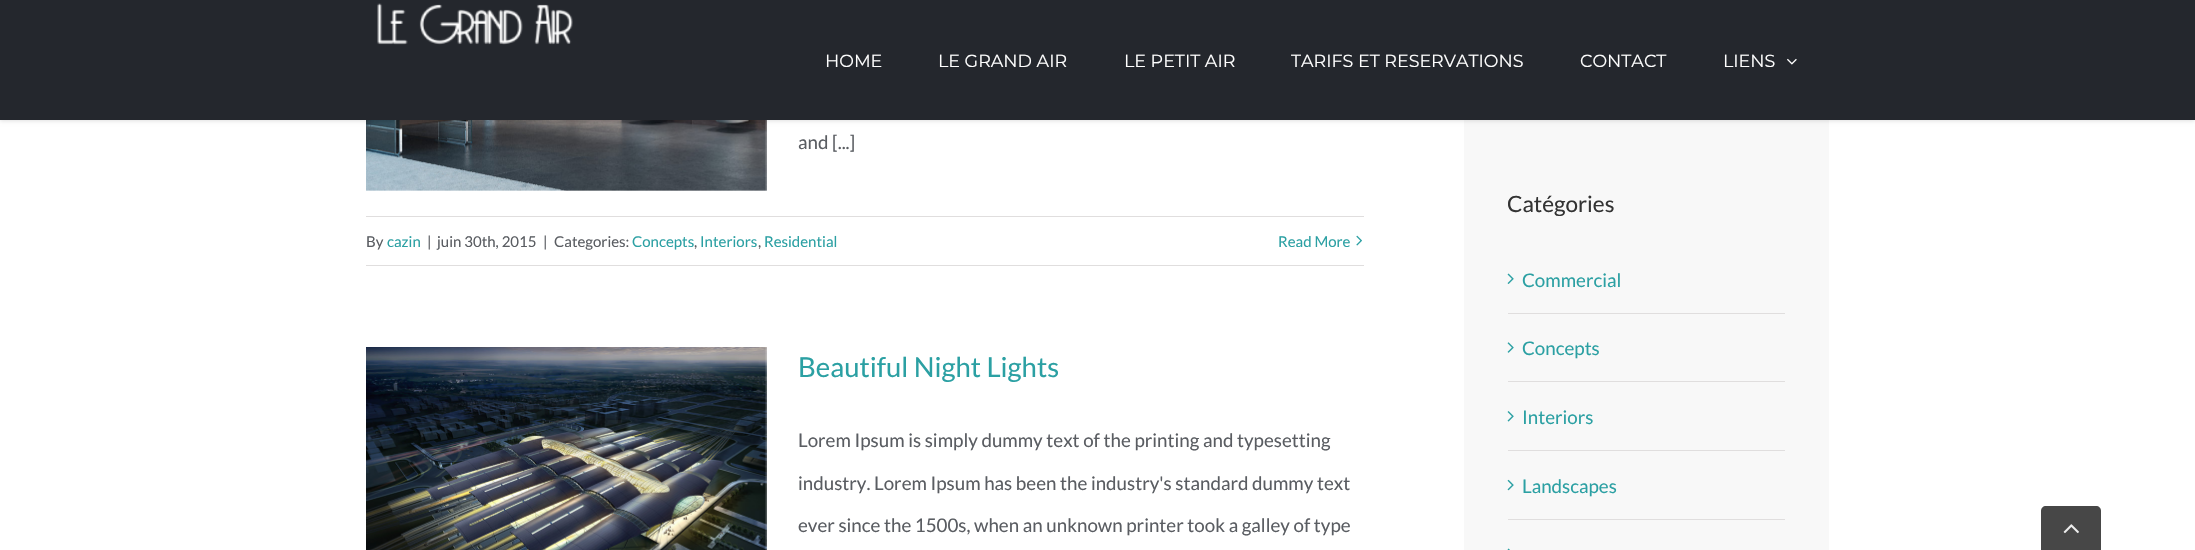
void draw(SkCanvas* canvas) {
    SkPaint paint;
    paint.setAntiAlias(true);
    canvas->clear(0xFFFFFFFF);
    canvas->drawImageRect(SkImages::DeferredFromEncodedData(SkData::MakeFromFileName("img3.png")), SkRect::MakeXYWH(366, 120, 401, 71), SkSamplingOptions());
    paint.setColor(0xFFF8F8F8);
    canvas->drawRect(SkRect::MakeXYWH(1464, 120, 365, 430), paint);
    paint.setColor(0x1F000000);
    paint.setMaskFilter(SkMaskFilter::MakeBlur(kNormal_SkBlurStyle, 2));
    canvas->drawRect(SkRect::MakeXYWH(0, 1, 2195, 120), paint);
    paint.setMaskFilter(nullptr);
    paint.setColor(0xFF24272D);
    canvas->drawRect(SkRect::MakeXYWH(0, 0, 2195, 120), paint);
    canvas->drawImageRect(SkImages::DeferredFromEncodedData(SkData::MakeFromFileName("img1.png")), SkRect::MakeXYWH(377, 3, 196, 42), SkSamplingOptions());
    SkFont font1(fontMgr->matchFamilyStyle("Montserrat", SkFontStyle(100, SkFontStyle::kNormal_Width, SkFontStyle::kUpright_Slant)), 17.5f);
    font1.setSubpixel(true);
    paint.setColor(0xFFFFFFFF);
    canvas->drawString("HOME", 825, 67, font1, paint);
    canvas->drawString("LE GRAND AIR", 938, 67, font1, paint);
    canvas->drawString("LE PETIT AIR", 1124, 67, font1, paint);
    canvas->drawString("TARIFS ET RESERVATIONS", 1291, 67, font1, paint);
    canvas->drawString("CONTACT", 1580, 67, font1, paint);
    canvas->drawString("LIENS", 1723, 67, font1, paint);
    canvas->drawImageRect(SkImages::DeferredFromEncodedData(SkData::MakeFromFileName("img2.png")), SkRect::MakeXYWH(1787, 58, 10, 7), SkSamplingOptions());
    SkFont font2(fontMgr->matchFamilyStyle("Lato", SkFontStyle::Normal()), 18.75f);
    font2.setSubpixel(true);
    paint.setColor(0xFF5A5D62);
    canvas->drawString("and [...]", 798, 149, font2, paint);
    paint.setColor(0xFFE0DEDE);
    canvas->drawRect(SkRect::MakeXYWH(366, 216, 998, 1), paint);
    canvas->drawRect(SkRect::MakeXYWH(366, 265, 998, 1), paint);
    SkFont font3(fontMgr->matchFamilyStyle("Lato", SkFontStyle::Normal()), 15);
    font3.setSubpixel(true);
    paint.setColor(0xFF5A5D62);
    canvas->drawString("By", 366, 247, font3, paint);
    paint.setColor(0xFF2BA0A3);
    canvas->drawString("cazin", 387, 247, font3, paint);
    paint.setColor(0xFF5A5D62);
    canvas->drawString("|", 427, 247, font3, paint);
    canvas->drawString("juin 30th, 2015", 437, 247, font3, paint);
    canvas->drawString("|", 543, 247, font3, paint);
    canvas->drawString("Categories:", 554, 247, font3, paint);
    paint.setColor(0xFF2BA0A3);
    canvas->drawString("Concepts", 632, 247, font3, paint);
    paint.setColor(0xFF5A5D62);
    canvas->drawString(",", 694, 247, font3, paint);
    paint.setColor(0xFF2BA0A3);
    canvas->drawString("Interiors", 700, 247, font3, paint);
    paint.setColor(0xFF5A5D62);
    canvas->drawString(",", 758, 247, font3, paint);
    paint.setColor(0xFF2BA0A3);
    canvas->drawString("Residential", 764, 247, font3, paint);
    canvas->drawString("Read More", 1278, 247, font3, paint);
    canvas->drawImageRect(SkImages::DeferredFromEncodedData(SkData::MakeFromFileName("img4.png")), SkRect::MakeXYWH(1356, 235, 6, 11), SkSamplingOptions());
    canvas->drawImageRect(SkImages::DeferredFromEncodedData(SkData::MakeFromFileName("img5.png")), SkRect::MakeXYWH(366, 347, 401, 203), SkSamplingOptions());
    SkFont font4(fontMgr->matchFamilyStyle("Lato", SkFontStyle::Normal()), 27.5f);
    font4.setSubpixel(true);
    canvas->drawString("Beautiful Night Lights", 798, 377, font4, paint);
    paint.setColor(0xFF5A5D62);
    canvas->drawString("Lorem Ipsum is simply dummy text of the printing and typesetting", 798, 447, font2, paint);
    canvas->drawString("industry. Lorem Ipsum has been the industry's standard dummy text", 798, 490, font2, paint);
    canvas->drawString("ever since the 1500s, when an unknown printer took a galley of type", 798, 532, font2, paint);
    SkFont font5(fontMgr->matchFamilyStyle("Lato", SkFontStyle::Normal()), 22.5f);
    font5.setSubpixel(true);
    paint.setColor(0xFF333333);
    canvas->drawString("Catégories", 1507, 212, font5, paint);
    paint.setColor(0xFFE0DEDE);
    canvas->drawRect(SkRect::MakeXYWH(1508, 313, 277, 1), paint);
    canvas->drawImageRect(SkImages::DeferredFromEncodedData(SkData::MakeFromFileName("img6.png")), SkRect::MakeXYWH(1507, 273, 7, 11), SkSamplingOptions());
    paint.setColor(0xFF2BA0A3);
    canvas->drawString("Commercial", 1522, 287, font2, paint);
    paint.setColor(0xFFE0DEDE);
    canvas->drawRect(SkRect::MakeXYWH(1508, 381, 277, 1), paint);
    canvas->drawImageRect(SkImages::DeferredFromEncodedData(SkData::MakeFromFileName("img7.png")), SkRect::MakeXYWH(1507, 342, 7, 11), SkSamplingOptions());
    paint.setColor(0xFF2BA0A3);
    canvas->drawString("Concepts", 1522, 355, font2, paint);
    paint.setColor(0xFFE0DEDE);
    canvas->drawRect(SkRect::MakeXYWH(1508, 450, 277, 1), paint);
    canvas->drawImageRect(SkImages::DeferredFromEncodedData(SkData::MakeFromFileName("img8.png")), SkRect::MakeXYWH(1507, 411, 7, 11), SkSamplingOptions());
    paint.setColor(0xFF2BA0A3);
    canvas->drawString("Interiors", 1522, 424, font2, paint);
    paint.setColor(0xFFE0DEDE);
    canvas->drawRect(SkRect::MakeXYWH(1508, 519, 277, 1), paint);
    canvas->drawImageRect(SkImages::DeferredFromEncodedData(SkData::MakeFromFileName("img9.png")), SkRect::MakeXYWH(1507, 479, 7, 12), SkSamplingOptions());
    paint.setColor(0xFF2BA0A3);
    canvas->drawString("Landscapes", 1522, 493, font2, paint);
    canvas->drawImageRect(SkImages::DeferredFromEncodedData(SkData::MakeFromFileName("img10.png")), SkRect::MakeXYWH(1507, 548, 3, 2), SkSamplingOptions());
    paint.setColor(0xFF474747);
    canvas->drawPath(SkPathBuilder().moveTo(2046, 506).lineTo(2096, 506).cubicTo(2099, 506, 2101, 508, 2101, 511).lineTo(2101, 550).lineTo(2041, 550).lineTo(2041, 511).cubicTo(2041, 508, 2043, 506, 2046, 506).close().detach(), paint);
    canvas->drawImageRect(SkImages::DeferredFromEncodedData(SkData::MakeFromFileName("img11.png")), SkRect::MakeXYWH(2063, 524, 16, 10), SkSamplingOptions());
}
